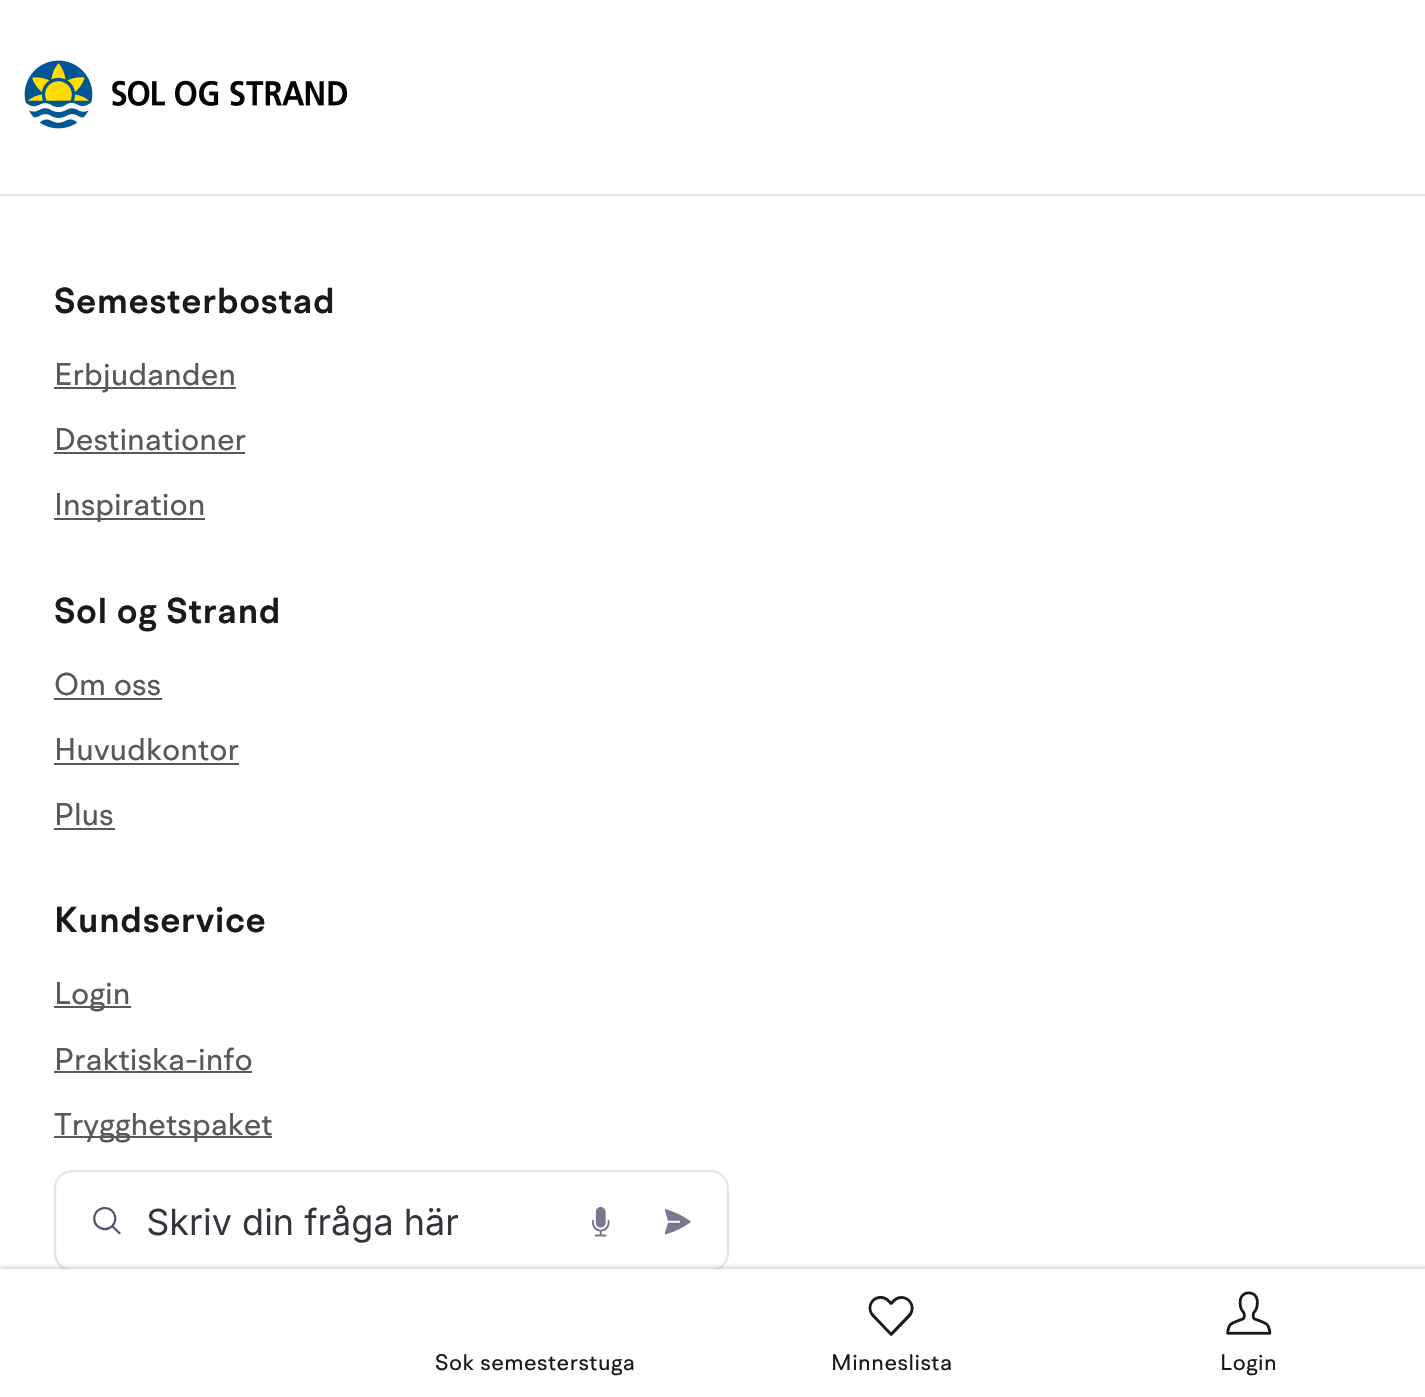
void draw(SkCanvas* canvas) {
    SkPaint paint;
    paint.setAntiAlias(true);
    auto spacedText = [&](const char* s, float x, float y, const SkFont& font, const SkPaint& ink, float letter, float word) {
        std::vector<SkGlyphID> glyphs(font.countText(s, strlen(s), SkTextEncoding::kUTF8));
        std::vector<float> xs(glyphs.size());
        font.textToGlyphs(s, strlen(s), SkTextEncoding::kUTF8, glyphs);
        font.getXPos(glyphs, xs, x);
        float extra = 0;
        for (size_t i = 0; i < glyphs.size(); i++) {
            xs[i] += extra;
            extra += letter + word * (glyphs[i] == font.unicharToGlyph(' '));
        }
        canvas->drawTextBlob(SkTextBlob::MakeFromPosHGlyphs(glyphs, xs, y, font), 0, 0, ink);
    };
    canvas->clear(0xFFFFFFFF);
    paint.setColor(0xFFE6E6E6);
    canvas->drawRect(SkRect::MakeXYWH(0, 194, 1425, 2), paint);
    canvas->drawImageRect(SkImages::DeferredFromEncodedData(SkData::MakeFromFileName("img1.png")), SkRect::MakeXYWH(24, 60, 323, 69), SkSamplingOptions());
    SkFont font1(fontMgr->matchFamilyStyle("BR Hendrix", SkFontStyle(600, SkFontStyle::kNormal_Width, SkFontStyle::kUpright_Slant)), 36);
    font1.setSubpixel(true);
    paint.setColor(0xFF1A1A1A);
    spacedText("Semesterbostad", 54, 313, font1, paint, 0.75f, 0);
    paint.setColor(0xFF595959);
    canvas->drawRect(SkRect::MakeXYWH(54, 387, 182, 2), paint);
    SkFont font2(fontMgr->matchFamilyStyle("BR Hendrix", SkFontStyle::Normal()), 31.5f);
    font2.setSubpixel(true);
    canvas->drawString("Erbjudanden", 54, 385, font2, paint);
    canvas->drawString("Destinationer", 54, 450, font2, paint);
    canvas->drawRect(SkRect::MakeXYWH(54, 452, 191, 2), paint);
    canvas->drawRect(SkRect::MakeXYWH(54, 518, 151, 2), paint);
    canvas->drawString("Inspiration", 54, 515, font2, paint);
    paint.setColor(0xFF1A1A1A);
    spacedText("Sol og Strand", 54, 623, font1, paint, 0.75f, 0);
    paint.setColor(0xFF595959);
    canvas->drawString("Om oss", 54, 695, font2, paint);
    canvas->drawRect(SkRect::MakeXYWH(54, 698, 108, 2), paint);
    canvas->drawString("Huvudkontor", 54, 760, font2, paint);
    canvas->drawRect(SkRect::MakeXYWH(54, 763, 185, 2), paint);
    canvas->drawString("Plus", 54, 825, font2, paint);
    canvas->drawRect(SkRect::MakeXYWH(54, 828, 61, 2), paint);
    paint.setColor(0xFF1A1A1A);
    spacedText("Kundservice", 54, 932, font1, paint, 0.75f, 0);
    paint.setColor(0xFF595959);
    canvas->drawRect(SkRect::MakeXYWH(54, 1006, 77, 2), paint);
    canvas->drawString("Login", 54, 1004, font2, paint);
    canvas->drawString("Praktiska-info", 54, 1070, font2, paint);
    canvas->drawRect(SkRect::MakeXYWH(54, 1071, 198, 2), paint);
    canvas->drawRect(SkRect::MakeXYWH(54, 1136, 218, 2), paint);
    canvas->drawString("Trygghetspaket", 54, 1135, font2, paint);
    canvas->drawImageRect(SkImages::DeferredFromEncodedData(SkData::MakeFromFileName("img2.png")), SkRect::MakeXYWH(54, 1170, 675, 99), SkSamplingOptions());
    paint.setColor(0x2E161617);
    paint.setMaskFilter(SkMaskFilter::MakeBlur(kNormal_SkBlurStyle, 2));
    canvas->drawRect(SkRect::MakeXYWH(0, 1267, 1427, 128), paint);
    paint.setMaskFilter(nullptr);
    paint.setColor(0xFFFFFFFF);
    canvas->drawRect(SkRect::MakeXYWH(0, 1269, 1425, 128), paint);
    SkFont font3(fontMgr->matchFamilyStyle("BR Hendrix", SkFontStyle::Normal()), 22.5f);
    font3.setSubpixel(true);
    paint.setColor(0xFF1A1A1A);
    spacedText("Sok semesterstuga", 435, 1370, font3, paint, 0.5f, 0);
    canvas->drawImageRect(SkImages::DeferredFromEncodedData(SkData::MakeFromFileName("img3.png")), SkRect::MakeXYWH(868, 1295, 46, 41), SkSamplingOptions());
    spacedText("Minneslista", 831, 1370, font3, paint, 0.5f, 0);
    canvas->drawImageRect(SkImages::DeferredFromEncodedData(SkData::MakeFromFileName("img4.png")), SkRect::MakeXYWH(1226, 1291, 46, 44), SkSamplingOptions());
    spacedText("Login", 1220, 1370, font3, paint, 0.5f, 0);
}
